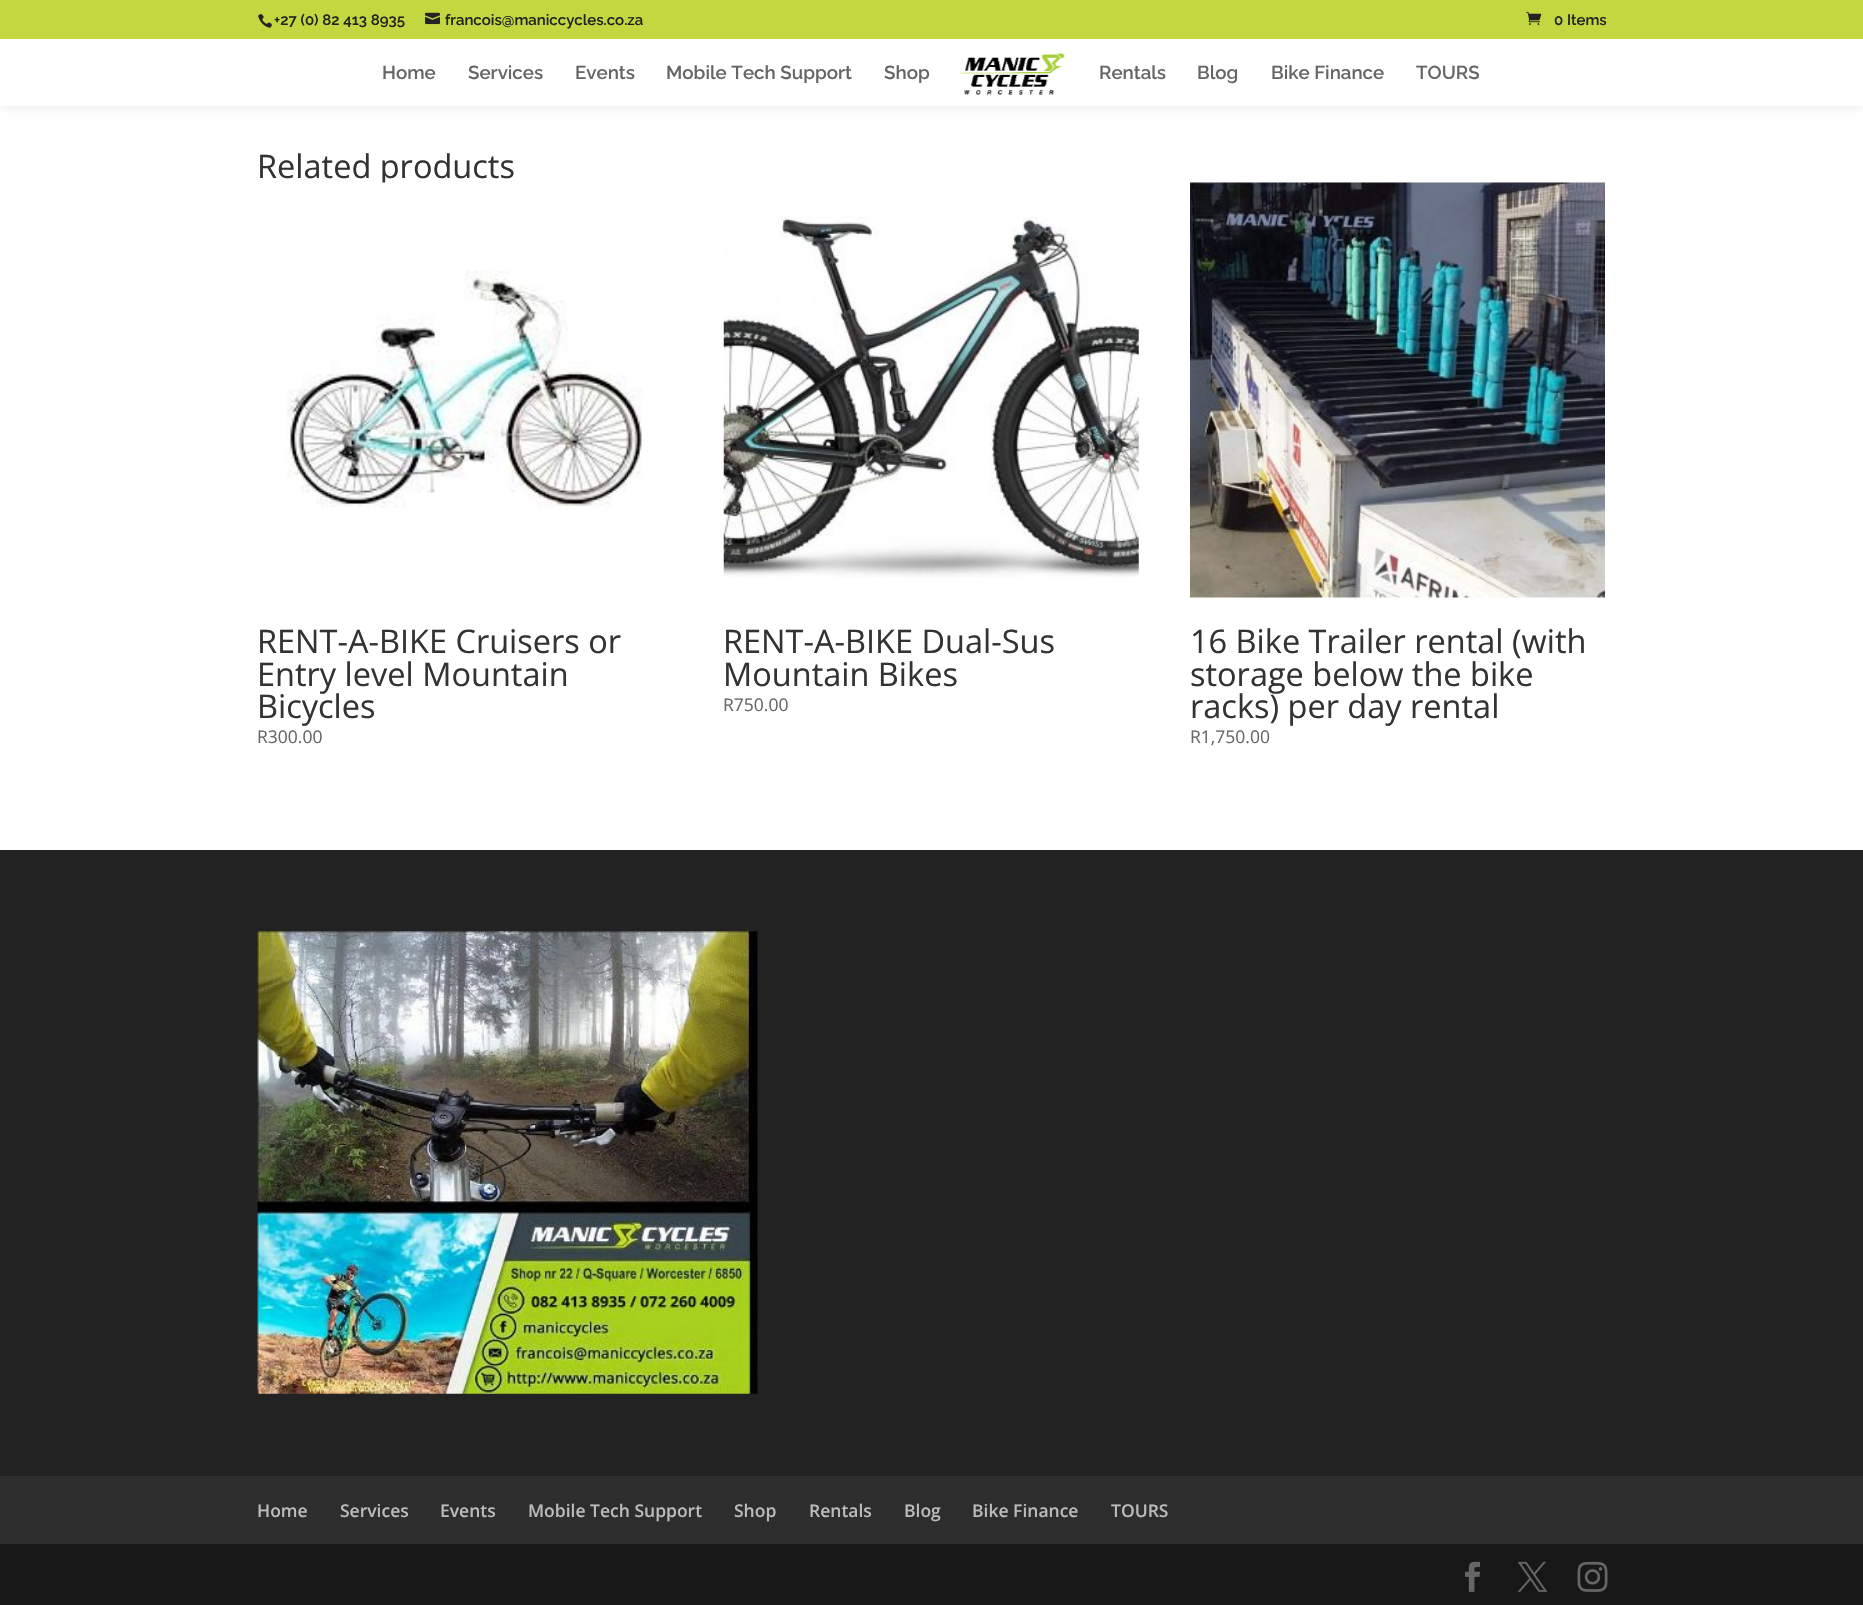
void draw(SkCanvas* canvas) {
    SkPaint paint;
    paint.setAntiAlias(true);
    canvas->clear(0xFFFFFFFF);
    paint.setColor(0x1A000000);
    paint.setMaskFilter(SkMaskFilter::MakeBlur(kNormal_SkBlurStyle, 4.5f));
    canvas->drawRect(SkRect::MakeXYWH(0, 39, 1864, 67), paint);
    paint.setMaskFilter(nullptr);
    paint.setColor(0xFFC3D740);
    canvas->drawRect(SkRect::MakeXYWH(0, 0, 1863, 39), paint);
    canvas->drawImageRect(SkImages::DeferredFromEncodedData(SkData::MakeFromFileName("img1.png")), SkRect::MakeXYWH(258, 14, 14, 14), SkSamplingOptions());
    SkFont font1(fontMgr->matchFamilyStyle("Raleway", SkFontStyle(600, SkFontStyle::kNormal_Width, SkFontStyle::kUpright_Slant)), 15);
    font1.setSubpixel(true);
    paint.setColor(0xFF232323);
    canvas->drawString("+27 (0) 82 413 8935", 274, 25, font1, paint);
    canvas->drawImageRect(SkImages::DeferredFromEncodedData(SkData::MakeFromFileName("img2.png")), SkRect::MakeXYWH(425, 12, 15, 13), SkSamplingOptions());
    canvas->drawString("francois@maniccycles.co.za", 445, 25, font1, paint);
    canvas->drawImageRect(SkImages::DeferredFromEncodedData(SkData::MakeFromFileName("img3.png")), SkRect::MakeXYWH(1526, 11, 16, 14), SkSamplingOptions());
    canvas->drawString("0 Items", 1554, 25, font1, paint);
    paint.setColor(0xFFFFFFFF);
    canvas->drawRect(SkRect::MakeXYWH(0, 39, 1863, 67), paint);
    SkFont font2(fontMgr->matchFamilyStyle("Raleway", SkFontStyle(600, SkFontStyle::kNormal_Width, SkFontStyle::kUpright_Slant)), 18.75f);
    font2.setSubpixel(true);
    paint.setColor(0xFF666666);
    canvas->drawString("Home", 382, 79, font2, paint);
    canvas->drawString("Services", 468, 79, font2, paint);
    canvas->drawString("Events", 575, 79, font2, paint);
    canvas->drawString("Mobile Tech Support", 666, 79, font2, paint);
    canvas->drawString("Shop", 884, 79, font2, paint);
    canvas->drawImageRect(SkImages::DeferredFromEncodedData(SkData::MakeFromFileName("img4.png")), SkRect::MakeXYWH(959, 53, 106, 42), SkSamplingOptions());
    canvas->drawString("Rentals", 1099, 79, font2, paint);
    canvas->drawString("Blog", 1197, 79, font2, paint);
    canvas->drawString("Bike Finance", 1271, 79, font2, paint);
    canvas->drawString("TOURS", 1416, 79, font2, paint);
    SkFont font3(fontMgr->matchFamilyStyle("Open Sans", SkFontStyle::Normal()), 32.5f);
    font3.setSubpixel(true);
    paint.setColor(0xFF333333);
    canvas->drawString("Related products", 257, 178, font3, paint);
    canvas->drawImageRect(SkImages::DeferredFromEncodedData(SkData::MakeFromFileName("img5.png")), SkRect::MakeXYWH(286, 182, 356, 326), SkSamplingOptions());
    canvas->drawString("RENT-A-BIKE Cruisers or", 257, 653, font3, paint);
    canvas->drawString("Entry level Mountain", 257, 686, font3, paint);
    canvas->drawString("Bicycles", 257, 718, font3, paint);
    SkFont font4(fontMgr->matchFamilyStyle("Open Sans", SkFontStyle::Normal()), 17.5f);
    font4.setSubpixel(true);
    paint.setColor(0xFF666666);
    canvas->drawString("R300.00", 257, 743, font4, paint);
    canvas->drawImageRect(SkImages::DeferredFromEncodedData(SkData::MakeFromFileName("img6.png")), SkRect::MakeXYWH(723, 216, 416, 362), SkSamplingOptions());
    paint.setColor(0xFF333333);
    canvas->drawString("RENT-A-BIKE Dual-Sus", 723, 653, font3, paint);
    canvas->drawString("Mountain Bikes", 723, 686, font3, paint);
    paint.setColor(0xFF666666);
    canvas->drawString("R750.00", 723, 711, font4, paint);
    canvas->drawImageRect(SkImages::DeferredFromEncodedData(SkData::MakeFromFileName("img7.png")), SkRect::MakeXYWH(1190, 182, 415, 416), SkSamplingOptions());
    paint.setColor(0xFF333333);
    canvas->drawString("16 Bike Trailer rental (with", 1190, 653, font3, paint);
    canvas->drawString("storage below the bike", 1190, 686, font3, paint);
    canvas->drawString("racks) per day rental", 1190, 718, font3, paint);
    paint.setColor(0xFF666666);
    canvas->drawString("R1,750.00", 1190, 743, font4, paint);
    paint.setColor(0xFF222222);
    canvas->drawRect(SkRect::MakeXYWH(0, 850, 1863, 626), paint);
    canvas->drawImageRect(SkImages::DeferredFromEncodedData(SkData::MakeFromFileName("img8.png")), SkRect::MakeXYWH(257, 931, 501, 463), SkSamplingOptions());
    paint.setColor(0xFF2D2D2D);
    canvas->drawRect(SkRect::MakeXYWH(0, 1476, 1863, 68), paint);
    SkFont font5(fontMgr->matchFamilyStyle("Open Sans", SkFontStyle(600, SkFontStyle::kNormal_Width, SkFontStyle::kUpright_Slant)), 17.5f);
    font5.setSubpixel(true);
    paint.setColor(0xFFBBBBBB);
    canvas->drawString("Home", 257, 1517, font5, paint);
    canvas->drawString("Services", 340, 1517, font5, paint);
    canvas->drawString("Events", 440, 1517, font5, paint);
    canvas->drawString("Mobile Tech Support", 528, 1517, font5, paint);
    canvas->drawString("Shop", 734, 1517, font5, paint);
    canvas->drawString("Rentals", 809, 1517, font5, paint);
    canvas->drawString("Blog", 904, 1517, font5, paint);
    canvas->drawString("Bike Finance", 972, 1517, font5, paint);
    canvas->drawString("TOURS", 1111, 1517, font5, paint);
    paint.setColor(0xFF171717);
    canvas->drawRect(SkRect::MakeXYWH(0, 1544, 1863, 61), paint);
    canvas->drawImageRect(SkImages::DeferredFromEncodedData(SkData::MakeFromFileName("img9.png")), SkRect::MakeXYWH(1465, 1561, 15, 31), SkSamplingOptions());
    canvas->drawImageRect(SkImages::DeferredFromEncodedData(SkData::MakeFromFileName("img10.png")), SkRect::MakeXYWH(1517, 1561, 31, 31), SkSamplingOptions());
    canvas->drawImageRect(SkImages::DeferredFromEncodedData(SkData::MakeFromFileName("img11.png")), SkRect::MakeXYWH(1577, 1561, 31, 31), SkSamplingOptions());
}
